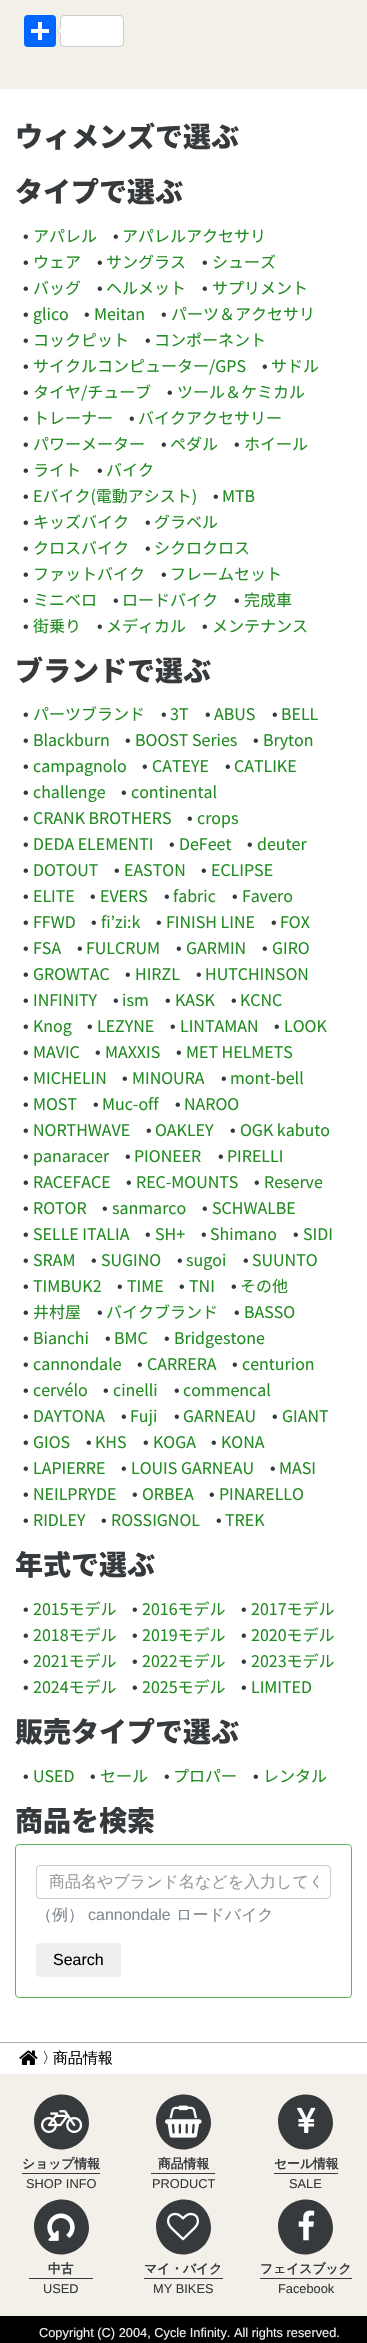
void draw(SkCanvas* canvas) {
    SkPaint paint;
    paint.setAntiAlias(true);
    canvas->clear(0xFFFFFFFF);
    paint.setColor(0xFFF2F0E8);
    canvas->drawRect(SkRect::MakeXYWH(0, 0, 367, 89), paint);
    paint.setColor(0xFF0166FF);
    canvas->drawRoundRect(SkRect::MakeXYWH(24, 15, 32, 32), 4, 4, paint);
    paint.setColor(0xFFFFFFFF);
    canvas->drawRect(SkRect::MakeXYWH(38, 22, 4, 18), paint);
    canvas->drawRect(SkRect::MakeXYWH(31, 29, 18, 4), paint);
    canvas->drawRoundRect(SkRect::MakeXYWH(60.5f, 15.5f, 63, 31), 3.5f, 3.5f, paint);
    paint.setStyle(SkPaint::kStroke_Style);
    paint.setStrokeWidth(1);
    paint.setColor(0xFFCCCCCC);
    canvas->drawRoundRect(SkRect::MakeXYWH(60.5f, 15.5f, 63, 31), 3.5f, 3.5f, paint);
    paint.setStyle(SkPaint::kFill_Style);
    canvas->drawPath(SkPathBuilder().moveTo(61, 27).lineTo(61, 35).lineTo(57, 31).close().detach(), paint);
    paint.setColor(0xFFFFFFFF);
    canvas->drawPath(SkPathBuilder().moveTo(62, 27).lineTo(62, 35).lineTo(58, 31).close().detach(), paint);
    SkFont font1(fontMgr->matchFamilyStyle("Noto Sans JP", SkFontStyle(900, SkFontStyle::kNormal_Width, SkFontStyle::kUpright_Slant)), 28);
    font1.setSubpixel(true);
    paint.setColor(0xFF373A3C);
    canvas->drawString("ウィメンズで選ぶ", 15, 147, font1, paint);
    canvas->drawString("タイプで選ぶ", 15, 202, font1, paint);
    SkFont font2(fontMgr->matchFamilyStyle("Liberation Sans", SkFontStyle::Normal()), 16);
    font2.setSubpixel(true);
    canvas->drawString("•", 23, 242, font2, paint);
    SkFont font3(fontMgr->matchFamilyStyle("Noto Sans JP", SkFontStyle::Normal()), 16);
    font3.setSubpixel(true);
    paint.setColor(0xFF228B22);
    canvas->drawString("アパレル", 33, 242, font3, paint);
    paint.setColor(0xFF373A3C);
    canvas->drawString("•", 113, 242, font2, paint);
    paint.setColor(0xFF228B22);
    canvas->drawString("アパレルアクセサリ", 122, 242, font3, paint);
    paint.setColor(0xFF373A3C);
    canvas->drawString("•", 23, 268, font2, paint);
    paint.setColor(0xFF228B22);
    canvas->drawString("ウェア", 33, 268, font3, paint);
    paint.setColor(0xFF373A3C);
    canvas->drawString("•", 97, 268, font2, paint);
    paint.setColor(0xFF228B22);
    canvas->drawString("サングラス", 106, 268, font3, paint);
    paint.setColor(0xFF373A3C);
    canvas->drawString("•", 202, 268, font2, paint);
    paint.setColor(0xFF228B22);
    canvas->drawString("シューズ", 212, 268, font3, paint);
    paint.setColor(0xFF373A3C);
    canvas->drawString("•", 23, 294, font2, paint);
    paint.setColor(0xFF228B22);
    canvas->drawString("バッグ", 33, 294, font3, paint);
    paint.setColor(0xFF373A3C);
    canvas->drawString("•", 97, 294, font2, paint);
    paint.setColor(0xFF228B22);
    canvas->drawString("ヘルメット", 106, 294, font3, paint);
    paint.setColor(0xFF373A3C);
    canvas->drawString("•", 202, 294, font2, paint);
    paint.setColor(0xFF228B22);
    canvas->drawString("サプリメント", 212, 294, font3, paint);
    paint.setColor(0xFF373A3C);
    canvas->drawString("•", 23, 320, font2, paint);
    paint.setColor(0xFF228B22);
    canvas->drawString("glico", 33, 320, font3, paint);
    paint.setColor(0xFF373A3C);
    canvas->drawString("•", 84, 320, font2, paint);
    paint.setColor(0xFF228B22);
    canvas->drawString("Meitan", 94, 320, font3, paint);
    paint.setColor(0xFF373A3C);
    canvas->drawString("•", 161, 320, font2, paint);
    paint.setColor(0xFF228B22);
    canvas->drawString("パーツ＆アクセサリ", 171, 320, font3, paint);
    paint.setColor(0xFF373A3C);
    canvas->drawString("•", 23, 346, font2, paint);
    paint.setColor(0xFF228B22);
    canvas->drawString("コックピット", 33, 346, font3, paint);
    paint.setColor(0xFF373A3C);
    canvas->drawString("•", 145, 346, font2, paint);
    paint.setColor(0xFF228B22);
    canvas->drawString("コンポーネント", 154, 346, font3, paint);
    paint.setColor(0xFF373A3C);
    canvas->drawString("•", 23, 372, font2, paint);
    paint.setColor(0xFF228B22);
    canvas->drawString("サイクルコンピューター/GPS", 33, 372, font3, paint);
    paint.setColor(0xFF373A3C);
    canvas->drawString("•", 262, 372, font2, paint);
    paint.setColor(0xFF228B22);
    canvas->drawString("サドル", 271, 372, font3, paint);
    paint.setColor(0xFF373A3C);
    canvas->drawString("•", 23, 398, font2, paint);
    paint.setColor(0xFF228B22);
    canvas->drawString("タイヤ/チューブ", 33, 398, font3, paint);
    paint.setColor(0xFF373A3C);
    canvas->drawString("•", 167, 398, font2, paint);
    paint.setColor(0xFF228B22);
    canvas->drawString("ツール＆ケミカル", 177, 398, font3, paint);
    paint.setColor(0xFF373A3C);
    canvas->drawString("•", 23, 424, font2, paint);
    paint.setColor(0xFF228B22);
    canvas->drawString("トレーナー", 33, 424, font3, paint);
    paint.setColor(0xFF373A3C);
    canvas->drawString("•", 129, 424, font2, paint);
    paint.setColor(0xFF228B22);
    canvas->drawString("バイクアクセサリー", 138, 424, font3, paint);
    paint.setColor(0xFF373A3C);
    canvas->drawString("•", 23, 450, font2, paint);
    paint.setColor(0xFF228B22);
    canvas->drawString("パワーメーター", 33, 450, font3, paint);
    paint.setColor(0xFF373A3C);
    canvas->drawString("•", 161, 450, font2, paint);
    paint.setColor(0xFF228B22);
    canvas->drawString("ペダル", 170, 450, font3, paint);
    paint.setColor(0xFF373A3C);
    canvas->drawString("•", 234, 450, font2, paint);
    paint.setColor(0xFF228B22);
    canvas->drawString("ホイール", 244, 450, font3, paint);
    paint.setColor(0xFF373A3C);
    canvas->drawString("•", 23, 476, font2, paint);
    paint.setColor(0xFF228B22);
    canvas->drawString("ライト", 33, 476, font3, paint);
    paint.setColor(0xFF373A3C);
    canvas->drawString("•", 97, 476, font2, paint);
    paint.setColor(0xFF228B22);
    canvas->drawString("バイク", 106, 476, font3, paint);
    paint.setColor(0xFF373A3C);
    canvas->drawString("•", 23, 502, font2, paint);
    paint.setColor(0xFF228B22);
    canvas->drawString("Eバイク(電動アシスト)", 33, 502, font3, paint);
    paint.setColor(0xFF373A3C);
    canvas->drawString("•", 213, 502, font2, paint);
    paint.setColor(0xFF228B22);
    canvas->drawString("MTB", 222, 502, font3, paint);
    paint.setColor(0xFF373A3C);
    canvas->drawString("•", 23, 528, font2, paint);
    paint.setColor(0xFF228B22);
    canvas->drawString("キッズバイク", 33, 528, font3, paint);
    paint.setColor(0xFF373A3C);
    canvas->drawString("•", 145, 528, font2, paint);
    paint.setColor(0xFF228B22);
    canvas->drawString("グラベル", 154, 528, font3, paint);
    paint.setColor(0xFF373A3C);
    canvas->drawString("•", 23, 554, font2, paint);
    paint.setColor(0xFF228B22);
    canvas->drawString("クロスバイク", 33, 554, font3, paint);
    paint.setColor(0xFF373A3C);
    canvas->drawString("•", 145, 554, font2, paint);
    paint.setColor(0xFF228B22);
    canvas->drawString("シクロクロス", 154, 554, font3, paint);
    paint.setColor(0xFF373A3C);
    canvas->drawString("•", 23, 580, font2, paint);
    paint.setColor(0xFF228B22);
    canvas->drawString("ファットバイク", 33, 580, font3, paint);
    paint.setColor(0xFF373A3C);
    canvas->drawString("•", 161, 580, font2, paint);
    paint.setColor(0xFF228B22);
    canvas->drawString("フレームセット", 170, 580, font3, paint);
    paint.setColor(0xFF373A3C);
    canvas->drawString("•", 23, 606, font2, paint);
    paint.setColor(0xFF228B22);
    canvas->drawString("ミニベロ", 33, 606, font3, paint);
    paint.setColor(0xFF373A3C);
    canvas->drawString("•", 113, 606, font2, paint);
    paint.setColor(0xFF228B22);
    canvas->drawString("ロードバイク", 122, 606, font3, paint);
    paint.setColor(0xFF373A3C);
    canvas->drawString("•", 234, 606, font2, paint);
    paint.setColor(0xFF228B22);
    canvas->drawString("完成車", 244, 606, font3, paint);
    paint.setColor(0xFF373A3C);
    canvas->drawString("•", 23, 632, font2, paint);
    paint.setColor(0xFF228B22);
    canvas->drawString("街乗り", 33, 632, font3, paint);
    paint.setColor(0xFF373A3C);
    canvas->drawString("•", 97, 632, font2, paint);
    paint.setColor(0xFF228B22);
    canvas->drawString("メディカル", 106, 632, font3, paint);
    paint.setColor(0xFF373A3C);
    canvas->drawString("•", 202, 632, font2, paint);
    paint.setColor(0xFF228B22);
    canvas->drawString("メンテナンス", 212, 632, font3, paint);
    paint.setColor(0xFF373A3C);
    canvas->drawString("ブランドで選ぶ", 15, 681, font1, paint);
    canvas->drawString("•", 23, 720, font2, paint);
    paint.setColor(0xFF228B22);
    canvas->drawString("パーツブランド", 33, 720, font3, paint);
    paint.setColor(0xFF373A3C);
    canvas->drawString("•", 161, 720, font2, paint);
    paint.setColor(0xFF228B22);
    canvas->drawString("3T", 170, 720, font3, paint);
    paint.setColor(0xFF373A3C);
    canvas->drawString("•", 205, 720, font2, paint);
    paint.setColor(0xFF228B22);
    canvas->drawString("ABUS", 214, 720, font3, paint);
    paint.setColor(0xFF373A3C);
    canvas->drawString("•", 272, 720, font2, paint);
    paint.setColor(0xFF228B22);
    canvas->drawString("BELL", 281, 720, font3, paint);
    paint.setColor(0xFF373A3C);
    canvas->drawString("•", 23, 746, font2, paint);
    paint.setColor(0xFF228B22);
    canvas->drawString("Blackburn", 33, 746, font3, paint);
    paint.setColor(0xFF373A3C);
    canvas->drawString("•", 125, 746, font2, paint);
    paint.setColor(0xFF228B22);
    canvas->drawString("BOOST Series", 135, 746, font3, paint);
    paint.setColor(0xFF373A3C);
    canvas->drawString("•", 253, 746, font2, paint);
    paint.setColor(0xFF228B22);
    canvas->drawString("Bryton", 263, 746, font3, paint);
    paint.setColor(0xFF373A3C);
    canvas->drawString("•", 23, 772, font2, paint);
    paint.setColor(0xFF228B22);
    canvas->drawString("campagnolo", 33, 772, font3, paint);
    paint.setColor(0xFF373A3C);
    canvas->drawString("•", 142, 772, font2, paint);
    paint.setColor(0xFF228B22);
    canvas->drawString("CATEYE", 152, 772, font3, paint);
    paint.setColor(0xFF373A3C);
    canvas->drawString("•", 225, 772, font2, paint);
    paint.setColor(0xFF228B22);
    canvas->drawString("CATLIKE", 234, 772, font3, paint);
    paint.setColor(0xFF373A3C);
    canvas->drawString("•", 23, 798, font2, paint);
    paint.setColor(0xFF228B22);
    canvas->drawString("challenge", 33, 798, font3, paint);
    paint.setColor(0xFF373A3C);
    canvas->drawString("•", 121, 798, font2, paint);
    paint.setColor(0xFF228B22);
    canvas->drawString("continental", 131, 798, font3, paint);
    paint.setColor(0xFF373A3C);
    canvas->drawString("•", 23, 824, font2, paint);
    paint.setColor(0xFF228B22);
    canvas->drawString("CRANK BROTHERS", 33, 824, font3, paint);
    paint.setColor(0xFF373A3C);
    canvas->drawString("•", 187, 824, font2, paint);
    paint.setColor(0xFF228B22);
    canvas->drawString("crops", 197, 824, font3, paint);
    paint.setColor(0xFF373A3C);
    canvas->drawString("•", 23, 850, font2, paint);
    paint.setColor(0xFF228B22);
    canvas->drawString("DEDA ELEMENTI", 33, 850, font3, paint);
    paint.setColor(0xFF373A3C);
    canvas->drawString("•", 169, 850, font2, paint);
    paint.setColor(0xFF228B22);
    canvas->drawString("DeFeet", 179, 850, font3, paint);
    paint.setColor(0xFF373A3C);
    canvas->drawString("•", 247, 850, font2, paint);
    paint.setColor(0xFF228B22);
    canvas->drawString("deuter", 257, 850, font3, paint);
    paint.setColor(0xFF373A3C);
    canvas->drawString("•", 23, 876, font2, paint);
    paint.setColor(0xFF228B22);
    canvas->drawString("DOTOUT", 33, 876, font3, paint);
    paint.setColor(0xFF373A3C);
    canvas->drawString("•", 114, 876, font2, paint);
    paint.setColor(0xFF228B22);
    canvas->drawString("EASTON", 124, 876, font3, paint);
    paint.setColor(0xFF373A3C);
    canvas->drawString("•", 201, 876, font2, paint);
    paint.setColor(0xFF228B22);
    canvas->drawString("ECLIPSE", 211, 876, font3, paint);
    paint.setColor(0xFF373A3C);
    canvas->drawString("•", 23, 902, font2, paint);
    paint.setColor(0xFF228B22);
    canvas->drawString("ELITE", 33, 902, font3, paint);
    paint.setColor(0xFF373A3C);
    canvas->drawString("•", 90, 902, font2, paint);
    paint.setColor(0xFF228B22);
    canvas->drawString("EVERS", 100, 902, font3, paint);
    paint.setColor(0xFF373A3C);
    canvas->drawString("•", 164, 902, font2, paint);
    paint.setColor(0xFF228B22);
    canvas->drawString("fabric", 173, 902, font3, paint);
    paint.setColor(0xFF373A3C);
    canvas->drawString("•", 232, 902, font2, paint);
    paint.setColor(0xFF228B22);
    canvas->drawString("Favero", 242, 902, font3, paint);
    paint.setColor(0xFF373A3C);
    canvas->drawString("•", 23, 928, font2, paint);
    paint.setColor(0xFF228B22);
    canvas->drawString("FFWD", 33, 928, font3, paint);
    paint.setColor(0xFF373A3C);
    canvas->drawString("•", 91, 928, font2, paint);
    paint.setColor(0xFF228B22);
    canvas->drawString("fi’zi:k", 101, 928, font3, paint);
    paint.setColor(0xFF373A3C);
    canvas->drawString("•", 156, 928, font2, paint);
    paint.setColor(0xFF228B22);
    canvas->drawString("FINISH LINE", 166, 928, font3, paint);
    paint.setColor(0xFF373A3C);
    canvas->drawString("•", 271, 928, font2, paint);
    paint.setColor(0xFF228B22);
    canvas->drawString("FOX", 280, 928, font3, paint);
    paint.setColor(0xFF373A3C);
    canvas->drawString("•", 23, 954, font2, paint);
    paint.setColor(0xFF228B22);
    canvas->drawString("FSA", 33, 954, font3, paint);
    paint.setColor(0xFF373A3C);
    canvas->drawString("•", 77, 954, font2, paint);
    paint.setColor(0xFF228B22);
    canvas->drawString("FULCRUM", 86, 954, font3, paint);
    paint.setColor(0xFF373A3C);
    canvas->drawString("•", 176, 954, font2, paint);
    paint.setColor(0xFF228B22);
    canvas->drawString("GARMIN", 186, 954, font3, paint);
    paint.setColor(0xFF373A3C);
    canvas->drawString("•", 262, 954, font2, paint);
    paint.setColor(0xFF228B22);
    canvas->drawString("GIRO", 272, 954, font3, paint);
    paint.setColor(0xFF373A3C);
    canvas->drawString("•", 23, 980, font2, paint);
    paint.setColor(0xFF228B22);
    canvas->drawString("GROWTAC", 33, 980, font3, paint);
    paint.setColor(0xFF373A3C);
    canvas->drawString("•", 125, 980, font2, paint);
    paint.setColor(0xFF228B22);
    canvas->drawString("HIRZL", 135, 980, font3, paint);
    paint.setColor(0xFF373A3C);
    canvas->drawString("•", 196, 980, font2, paint);
    paint.setColor(0xFF228B22);
    canvas->drawString("HUTCHINSON", 205, 980, font3, paint);
    paint.setColor(0xFF373A3C);
    canvas->drawString("•", 23, 1006, font2, paint);
    paint.setColor(0xFF228B22);
    canvas->drawString("INFINITY", 33, 1006, font3, paint);
    paint.setColor(0xFF373A3C);
    canvas->drawString("•", 113, 1006, font2, paint);
    paint.setColor(0xFF228B22);
    canvas->drawString("ism", 122, 1006, font3, paint);
    paint.setColor(0xFF373A3C);
    canvas->drawString("•", 165, 1006, font2, paint);
    paint.setColor(0xFF228B22);
    canvas->drawString("KASK", 175, 1006, font3, paint);
    paint.setColor(0xFF373A3C);
    canvas->drawString("•", 231, 1006, font2, paint);
    paint.setColor(0xFF228B22);
    canvas->drawString("KCNC", 240, 1006, font3, paint);
    paint.setColor(0xFF373A3C);
    canvas->drawString("•", 23, 1032, font2, paint);
    paint.setColor(0xFF228B22);
    canvas->drawString("Knog", 33, 1032, font3, paint);
    paint.setColor(0xFF373A3C);
    canvas->drawString("•", 87, 1032, font2, paint);
    paint.setColor(0xFF228B22);
    canvas->drawString("LEZYNE", 97, 1032, font3, paint);
    paint.setColor(0xFF373A3C);
    canvas->drawString("•", 170, 1032, font2, paint);
    paint.setColor(0xFF228B22);
    canvas->drawString("LINTAMAN", 180, 1032, font3, paint);
    paint.setColor(0xFF373A3C);
    canvas->drawString("•", 274, 1032, font2, paint);
    paint.setColor(0xFF228B22);
    canvas->drawString("LOOK", 284, 1032, font3, paint);
    paint.setColor(0xFF373A3C);
    canvas->drawString("•", 23, 1058, font2, paint);
    paint.setColor(0xFF228B22);
    canvas->drawString("MAVIC", 33, 1058, font3, paint);
    paint.setColor(0xFF373A3C);
    canvas->drawString("•", 95, 1058, font2, paint);
    paint.setColor(0xFF228B22);
    canvas->drawString("MAXXIS", 105, 1058, font3, paint);
    paint.setColor(0xFF373A3C);
    canvas->drawString("•", 176, 1058, font2, paint);
    paint.setColor(0xFF228B22);
    canvas->drawString("MET HELMETS", 186, 1058, font3, paint);
    paint.setColor(0xFF373A3C);
    canvas->drawString("•", 23, 1084, font2, paint);
    paint.setColor(0xFF228B22);
    canvas->drawString("MICHELIN", 33, 1084, font3, paint);
    paint.setColor(0xFF373A3C);
    canvas->drawString("•", 122, 1084, font2, paint);
    paint.setColor(0xFF228B22);
    canvas->drawString("MINOURA", 132, 1084, font3, paint);
    paint.setColor(0xFF373A3C);
    canvas->drawString("•", 221, 1084, font2, paint);
    paint.setColor(0xFF228B22);
    canvas->drawString("mont-bell", 230, 1084, font3, paint);
    paint.setColor(0xFF373A3C);
    canvas->drawString("•", 23, 1110, font2, paint);
    paint.setColor(0xFF228B22);
    canvas->drawString("MOST", 33, 1110, font3, paint);
    paint.setColor(0xFF373A3C);
    canvas->drawString("•", 93, 1110, font2, paint);
    paint.setColor(0xFF228B22);
    canvas->drawString("Muc-off", 102, 1110, font3, paint);
    paint.setColor(0xFF373A3C);
    canvas->drawString("•", 175, 1110, font2, paint);
    paint.setColor(0xFF228B22);
    canvas->drawString("NAROO", 184, 1110, font3, paint);
    paint.setColor(0xFF373A3C);
    canvas->drawString("•", 23, 1136, font2, paint);
    paint.setColor(0xFF228B22);
    canvas->drawString("NORTHWAVE", 33, 1136, font3, paint);
    paint.setColor(0xFF373A3C);
    canvas->drawString("•", 146, 1136, font2, paint);
    paint.setColor(0xFF228B22);
    canvas->drawString("OAKLEY", 155, 1136, font3, paint);
    paint.setColor(0xFF373A3C);
    canvas->drawString("•", 230, 1136, font2, paint);
    paint.setColor(0xFF228B22);
    canvas->drawString("OGK kabuto", 240, 1136, font3, paint);
    paint.setColor(0xFF373A3C);
    canvas->drawString("•", 23, 1162, font2, paint);
    paint.setColor(0xFF228B22);
    canvas->drawString("panaracer", 33, 1162, font3, paint);
    paint.setColor(0xFF373A3C);
    canvas->drawString("•", 125, 1162, font2, paint);
    paint.setColor(0xFF228B22);
    canvas->drawString("PIONEER", 134, 1162, font3, paint);
    paint.setColor(0xFF373A3C);
    canvas->drawString("•", 218, 1162, font2, paint);
    paint.setColor(0xFF228B22);
    canvas->drawString("PIRELLI", 227, 1162, font3, paint);
    paint.setColor(0xFF373A3C);
    canvas->drawString("•", 23, 1188, font2, paint);
    paint.setColor(0xFF228B22);
    canvas->drawString("RACEFACE", 33, 1188, font3, paint);
    paint.setColor(0xFF373A3C);
    canvas->drawString("•", 126, 1188, font2, paint);
    paint.setColor(0xFF228B22);
    canvas->drawString("REC-MOUNTS", 136, 1188, font3, paint);
    paint.setColor(0xFF373A3C);
    canvas->drawString("•", 254, 1188, font2, paint);
    paint.setColor(0xFF228B22);
    canvas->drawString("Reserve", 264, 1188, font3, paint);
    paint.setColor(0xFF373A3C);
    canvas->drawString("•", 23, 1214, font2, paint);
    paint.setColor(0xFF228B22);
    canvas->drawString("ROTOR", 33, 1214, font3, paint);
    paint.setColor(0xFF373A3C);
    canvas->drawString("•", 102, 1214, font2, paint);
    paint.setColor(0xFF228B22);
    canvas->drawString("sanmarco", 112, 1214, font3, paint);
    paint.setColor(0xFF373A3C);
    canvas->drawString("•", 202, 1214, font2, paint);
    paint.setColor(0xFF228B22);
    canvas->drawString("SCHWALBE", 212, 1214, font3, paint);
    paint.setColor(0xFF373A3C);
    canvas->drawString("•", 23, 1240, font2, paint);
    paint.setColor(0xFF228B22);
    canvas->drawString("SELLE ITALIA", 33, 1240, font3, paint);
    paint.setColor(0xFF373A3C);
    canvas->drawString("•", 145, 1240, font2, paint);
    paint.setColor(0xFF228B22);
    canvas->drawString("SH+", 155, 1240, font3, paint);
    paint.setColor(0xFF373A3C);
    canvas->drawString("•", 201, 1240, font2, paint);
    paint.setColor(0xFF228B22);
    canvas->drawString("Shimano", 210, 1240, font3, paint);
    paint.setColor(0xFF373A3C);
    canvas->drawString("•", 293, 1240, font2, paint);
    paint.setColor(0xFF228B22);
    canvas->drawString("SIDI", 303, 1240, font3, paint);
    paint.setColor(0xFF373A3C);
    canvas->drawString("•", 23, 1266, font2, paint);
    paint.setColor(0xFF228B22);
    canvas->drawString("SRAM", 33, 1266, font3, paint);
    paint.setColor(0xFF373A3C);
    canvas->drawString("•", 91, 1266, font2, paint);
    paint.setColor(0xFF228B22);
    canvas->drawString("SUGINO", 101, 1266, font3, paint);
    paint.setColor(0xFF373A3C);
    canvas->drawString("•", 177, 1266, font2, paint);
    paint.setColor(0xFF228B22);
    canvas->drawString("sugoi", 186, 1266, font3, paint);
    paint.setColor(0xFF373A3C);
    canvas->drawString("•", 243, 1266, font2, paint);
    paint.setColor(0xFF228B22);
    canvas->drawString("SUUNTO", 252, 1266, font3, paint);
    paint.setColor(0xFF373A3C);
    canvas->drawString("•", 23, 1292, font2, paint);
    paint.setColor(0xFF228B22);
    canvas->drawString("TIMBUK2", 33, 1292, font3, paint);
    paint.setColor(0xFF373A3C);
    canvas->drawString("•", 117, 1292, font2, paint);
    paint.setColor(0xFF228B22);
    canvas->drawString("TIME", 127, 1292, font3, paint);
    paint.setColor(0xFF373A3C);
    canvas->drawString("•", 179, 1292, font2, paint);
    paint.setColor(0xFF228B22);
    canvas->drawString("TNI", 189, 1292, font3, paint);
    paint.setColor(0xFF373A3C);
    canvas->drawString("•", 231, 1292, font2, paint);
    paint.setColor(0xFF228B22);
    canvas->drawString("その他", 240, 1292, font3, paint);
    paint.setColor(0xFF373A3C);
    canvas->drawString("•", 23, 1318, font2, paint);
    paint.setColor(0xFF228B22);
    canvas->drawString("井村屋", 33, 1318, font3, paint);
    paint.setColor(0xFF373A3C);
    canvas->drawString("•", 97, 1318, font2, paint);
    paint.setColor(0xFF228B22);
    canvas->drawString("バイクブランド", 106, 1318, font3, paint);
    paint.setColor(0xFF373A3C);
    canvas->drawString("•", 234, 1318, font2, paint);
    paint.setColor(0xFF228B22);
    canvas->drawString("BASSO", 244, 1318, font3, paint);
    paint.setColor(0xFF373A3C);
    canvas->drawString("•", 23, 1344, font2, paint);
    paint.setColor(0xFF228B22);
    canvas->drawString("Bianchi", 33, 1344, font3, paint);
    paint.setColor(0xFF373A3C);
    canvas->drawString("•", 105, 1344, font2, paint);
    paint.setColor(0xFF228B22);
    canvas->drawString("BMC", 114, 1344, font3, paint);
    paint.setColor(0xFF373A3C);
    canvas->drawString("•", 164, 1344, font2, paint);
    paint.setColor(0xFF228B22);
    canvas->drawString("Bridgestone", 174, 1344, font3, paint);
    paint.setColor(0xFF373A3C);
    canvas->drawString("•", 23, 1370, font2, paint);
    paint.setColor(0xFF228B22);
    canvas->drawString("cannondale", 33, 1370, font3, paint);
    paint.setColor(0xFF373A3C);
    canvas->drawString("•", 137, 1370, font2, paint);
    paint.setColor(0xFF228B22);
    canvas->drawString("CARRERA", 147, 1370, font3, paint);
    paint.setColor(0xFF373A3C);
    canvas->drawString("•", 232, 1370, font2, paint);
    paint.setColor(0xFF228B22);
    canvas->drawString("centurion", 242, 1370, font3, paint);
    paint.setColor(0xFF373A3C);
    canvas->drawString("•", 23, 1396, font2, paint);
    paint.setColor(0xFF228B22);
    canvas->drawString("cervélo", 33, 1396, font3, paint);
    paint.setColor(0xFF373A3C);
    canvas->drawString("•", 103, 1396, font2, paint);
    paint.setColor(0xFF228B22);
    canvas->drawString("cinelli", 113, 1396, font3, paint);
    paint.setColor(0xFF373A3C);
    canvas->drawString("•", 174, 1396, font2, paint);
    paint.setColor(0xFF228B22);
    canvas->drawString("commencal", 183, 1396, font3, paint);
    paint.setColor(0xFF373A3C);
    canvas->drawString("•", 23, 1422, font2, paint);
    paint.setColor(0xFF228B22);
    canvas->drawString("DAYTONA", 33, 1422, font3, paint);
    paint.setColor(0xFF373A3C);
    canvas->drawString("•", 121, 1422, font2, paint);
    paint.setColor(0xFF228B22);
    canvas->drawString("Fuji", 130, 1422, font3, paint);
    paint.setColor(0xFF373A3C);
    canvas->drawString("•", 174, 1422, font2, paint);
    paint.setColor(0xFF228B22);
    canvas->drawString("GARNEAU", 183, 1422, font3, paint);
    paint.setColor(0xFF373A3C);
    canvas->drawString("•", 272, 1422, font2, paint);
    paint.setColor(0xFF228B22);
    canvas->drawString("GIANT", 282, 1422, font3, paint);
    paint.setColor(0xFF373A3C);
    canvas->drawString("•", 23, 1448, font2, paint);
    paint.setColor(0xFF228B22);
    canvas->drawString("GIOS", 33, 1448, font3, paint);
    paint.setColor(0xFF373A3C);
    canvas->drawString("•", 86, 1448, font2, paint);
    paint.setColor(0xFF228B22);
    canvas->drawString("KHS", 95, 1448, font3, paint);
    paint.setColor(0xFF373A3C);
    canvas->drawString("•", 143, 1448, font2, paint);
    paint.setColor(0xFF228B22);
    canvas->drawString("KOGA", 153, 1448, font3, paint);
    paint.setColor(0xFF373A3C);
    canvas->drawString("•", 211, 1448, font2, paint);
    paint.setColor(0xFF228B22);
    canvas->drawString("KONA", 221, 1448, font3, paint);
    paint.setColor(0xFF373A3C);
    canvas->drawString("•", 23, 1474, font2, paint);
    paint.setColor(0xFF228B22);
    canvas->drawString("LAPIERRE", 33, 1474, font3, paint);
    paint.setColor(0xFF373A3C);
    canvas->drawString("•", 121, 1474, font2, paint);
    paint.setColor(0xFF228B22);
    canvas->drawString("LOUIS GARNEAU", 131, 1474, font3, paint);
    paint.setColor(0xFF373A3C);
    canvas->drawString("•", 270, 1474, font2, paint);
    paint.setColor(0xFF228B22);
    canvas->drawString("MASI", 279, 1474, font3, paint);
    paint.setColor(0xFF373A3C);
    canvas->drawString("•", 23, 1500, font2, paint);
    paint.setColor(0xFF228B22);
    canvas->drawString("NEILPRYDE", 33, 1500, font3, paint);
    paint.setColor(0xFF373A3C);
    canvas->drawString("•", 132, 1500, font2, paint);
    paint.setColor(0xFF228B22);
    canvas->drawString("ORBEA", 142, 1500, font3, paint);
    paint.setColor(0xFF373A3C);
    canvas->drawString("•", 209, 1500, font2, paint);
    paint.setColor(0xFF228B22);
    canvas->drawString("PINARELLO", 219, 1500, font3, paint);
    paint.setColor(0xFF373A3C);
    canvas->drawString("•", 23, 1526, font2, paint);
    paint.setColor(0xFF228B22);
    canvas->drawString("RIDLEY", 33, 1526, font3, paint);
    paint.setColor(0xFF373A3C);
    canvas->drawString("•", 101, 1526, font2, paint);
    paint.setColor(0xFF228B22);
    canvas->drawString("ROSSIGNOL", 111, 1526, font3, paint);
    paint.setColor(0xFF373A3C);
    canvas->drawString("•", 216, 1526, font2, paint);
    paint.setColor(0xFF228B22);
    canvas->drawString("TREK", 225, 1526, font3, paint);
    paint.setColor(0xFF373A3C);
    canvas->drawString("年式で選ぶ", 15, 1575, font1, paint);
    canvas->drawString("•", 23, 1615, font2, paint);
    paint.setColor(0xFF228B22);
    canvas->drawString("2015モデル", 33, 1615, font3, paint);
    paint.setColor(0xFF373A3C);
    canvas->drawString("•", 132, 1615, font2, paint);
    paint.setColor(0xFF228B22);
    canvas->drawString("2016モデル", 142, 1615, font3, paint);
    paint.setColor(0xFF373A3C);
    canvas->drawString("•", 241, 1615, font2, paint);
    paint.setColor(0xFF228B22);
    canvas->drawString("2017モデル", 251, 1615, font3, paint);
    paint.setColor(0xFF373A3C);
    canvas->drawString("•", 23, 1641, font2, paint);
    paint.setColor(0xFF228B22);
    canvas->drawString("2018モデル", 33, 1641, font3, paint);
    paint.setColor(0xFF373A3C);
    canvas->drawString("•", 132, 1641, font2, paint);
    paint.setColor(0xFF228B22);
    canvas->drawString("2019モデル", 142, 1641, font3, paint);
    paint.setColor(0xFF373A3C);
    canvas->drawString("•", 241, 1641, font2, paint);
    paint.setColor(0xFF228B22);
    canvas->drawString("2020モデル", 251, 1641, font3, paint);
    paint.setColor(0xFF373A3C);
    canvas->drawString("•", 23, 1667, font2, paint);
    paint.setColor(0xFF228B22);
    canvas->drawString("2021モデル", 33, 1667, font3, paint);
    paint.setColor(0xFF373A3C);
    canvas->drawString("•", 132, 1667, font2, paint);
    paint.setColor(0xFF228B22);
    canvas->drawString("2022モデル", 142, 1667, font3, paint);
    paint.setColor(0xFF373A3C);
    canvas->drawString("•", 241, 1667, font2, paint);
    paint.setColor(0xFF228B22);
    canvas->drawString("2023モデル", 251, 1667, font3, paint);
    paint.setColor(0xFF373A3C);
    canvas->drawString("•", 23, 1693, font2, paint);
    paint.setColor(0xFF228B22);
    canvas->drawString("2024モデル", 33, 1693, font3, paint);
    paint.setColor(0xFF373A3C);
    canvas->drawString("•", 132, 1693, font2, paint);
    paint.setColor(0xFF228B22);
    canvas->drawString("2025モデル", 142, 1693, font3, paint);
    paint.setColor(0xFF373A3C);
    canvas->drawString("•", 241, 1693, font2, paint);
    paint.setColor(0xFF228B22);
    canvas->drawString("LIMITED", 251, 1693, font3, paint);
    paint.setColor(0xFF373A3C);
    canvas->drawString("販売タイプで選ぶ", 15, 1742, font1, paint);
    canvas->drawString("•", 23, 1782, font2, paint);
    paint.setColor(0xFF228B22);
    canvas->drawString("USED", 33, 1782, font3, paint);
    paint.setColor(0xFF373A3C);
    canvas->drawString("•", 90, 1782, font2, paint);
    paint.setColor(0xFF228B22);
    canvas->drawString("セール", 100, 1782, font3, paint);
    paint.setColor(0xFF373A3C);
    canvas->drawString("•", 164, 1782, font2, paint);
    paint.setColor(0xFF228B22);
    canvas->drawString("プロパー", 173, 1782, font3, paint);
    paint.setColor(0xFF373A3C);
    canvas->drawString("•", 253, 1782, font2, paint);
    paint.setColor(0xFF228B22);
    canvas->drawString("レンタル", 263, 1782, font3, paint);
    paint.setColor(0xFF373A3C);
    canvas->drawString("商品を検索", 15, 1831, font1, paint);
    paint.setStyle(SkPaint::kStroke_Style);
    paint.setColor(0xFF5CB85C);
    canvas->drawRoundRect(SkRect::MakeXYWH(15.5f, 1844.5f, 336, 153), 3.5f, 3.5f, paint);
    paint.setColor(0xFFCCCCCC);
    canvas->drawRoundRect(SkRect::MakeXYWH(36.5f, 1865.5f, 294, 33), 3.5f, 3.5f, paint);
    canvas->save();
    canvas->clipRect(SkRect::MakeXYWH(49, 1872, 269, 21));
    SkFont font4(fontMgr->matchFamilyStyle("WenQuanYi Zen Hei", SkFontStyle(500, SkFontStyle::kNormal_Width, SkFontStyle::kUpright_Slant)), 16);
    font4.setSubpixel(true);
    paint.setStyle(SkPaint::kFill_Style);
    paint.setColor(0xFF999999);
    canvas->drawString("商品名やブランド名などを入力してく", 49, 1887, font4, paint);
    canvas->restore();
    paint.setColor(0xFF818A91);
    canvas->drawString("（例）", 36, 1920, font4, paint);
    canvas->drawString("cannondale", 88, 1920, font2, paint);
    canvas->drawString("ロードバイク", 176, 1920, font4, paint);
    paint.setColor(0xFFEFEFEF);
    canvas->drawRoundRect(SkRect::MakeXYWH(36, 1943, 85, 34), 4, 4, paint);
    paint.setColor(0xFF000000);
    canvas->drawString("Search", 53, 1965, font2, paint);
    paint.setColor(0xFFAAAAAA);
    canvas->drawRect(SkRect::MakeXYWH(0, 2042, 367, 1), paint);
    canvas->drawImageRect(SkImages::DeferredFromEncodedData(SkData::MakeFromFileName("img1.png")), SkRect::MakeXYWH(19, 2050, 19, 15), SkSamplingOptions());
    SkFont font5(fontMgr->matchFamilyStyle("WenQuanYi Zen Hei", SkFontStyle(500, SkFontStyle::kNormal_Width, SkFontStyle::kUpright_Slant)), 15);
    font5.setSubpixel(true);
    paint.setColor(0xFF000000);
    canvas->drawString("〉", 42, 2063, font5, paint);
    canvas->drawString("商品情報", 53, 2063, font5, paint);
    paint.setColor(0xFFF2F0E8);
    canvas->drawRect(SkRect::MakeXYWH(0, 2074, 367, 242), paint);
    paint.setColor(0xFF373A3C);
    canvas->drawPath(SkPathBuilder().moveTo(85, 2108).cubicTo(88, 2113, 89, 2119, 89, 2124).cubicTo(87, 2151, 51, 2159, 38, 2136).cubicTo(35, 2131, 34, 2126, 34, 2120).cubicTo(36, 2093, 72, 2085, 85, 2108).close().detach(), paint);
    canvas->drawImageRect(SkImages::DeferredFromEncodedData(SkData::MakeFromFileName("img2.png")), SkRect::MakeXYWH(41, 2110, 42, 23), SkSamplingOptions());
    SkFont font6(fontMgr->matchFamilyStyle("WenQuanYi Zen Hei", SkFontStyle::Bold()), 12.8f);
    font6.setSubpixel(true);
    canvas->drawString("ショップ情報", 22, 2168, font6, paint);
    canvas->drawRect(SkRect::MakeXYWH(22, 2173, 78, 1), paint);
    SkFont font7(fontMgr->matchFamilyStyle("Liberation Sans", SkFontStyle::Normal()), 12.8f);
    font7.setSubpixel(true);
    canvas->drawString("SHOP INFO", 26, 2188, font7, paint);
    canvas->drawPath(SkPathBuilder().moveTo(207, 2108).cubicTo(210, 2113, 211, 2119, 211, 2124).cubicTo(209, 2151, 173, 2159, 160, 2136).cubicTo(157, 2131, 156, 2126, 156, 2120).cubicTo(158, 2093, 194, 2085, 207, 2108).close().detach(), paint);
    canvas->drawImageRect(SkImages::DeferredFromEncodedData(SkData::MakeFromFileName("img3.png")), SkRect::MakeXYWH(165, 2105, 37, 33), SkSamplingOptions());
    canvas->drawString("商品情報", 158, 2168, font6, paint);
    canvas->drawRect(SkRect::MakeXYWH(151, 2173, 64, 1), paint);
    canvas->drawString("PRODUCT", 152, 2188, font7, paint);
    canvas->drawPath(SkPathBuilder().moveTo(329, 2108).cubicTo(332, 2113, 333, 2119, 333, 2124).cubicTo(331, 2151, 295, 2159, 282, 2136).cubicTo(279, 2131, 278, 2126, 278, 2120).cubicTo(280, 2093, 316, 2085, 329, 2108).close().detach(), paint);
    canvas->drawImageRect(SkImages::DeferredFromEncodedData(SkData::MakeFromFileName("img4.png")), SkRect::MakeXYWH(297, 2107, 19, 26), SkSamplingOptions());
    canvas->drawString("セール情報", 274, 2168, font6, paint);
    canvas->drawRect(SkRect::MakeXYWH(274, 2173, 64, 1), paint);
    canvas->drawString("SALE", 289, 2188, font7, paint);
    canvas->drawPath(SkPathBuilder().moveTo(85, 2213).cubicTo(88, 2218, 89, 2224, 89, 2229).cubicTo(87, 2256, 51, 2264, 38, 2241).cubicTo(35, 2236, 34, 2231, 34, 2225).cubicTo(36, 2198, 72, 2190, 85, 2213).close().detach(), paint);
    canvas->drawImageRect(SkImages::DeferredFromEncodedData(SkData::MakeFromFileName("img5.png")), SkRect::MakeXYWH(47, 2213, 28, 28), SkSamplingOptions());
    canvas->drawString("中古", 48, 2273, font6, paint);
    canvas->drawRect(SkRect::MakeXYWH(29, 2278, 64, 1), paint);
    canvas->drawString("USED", 43, 2293, font7, paint);
    canvas->drawPath(SkPathBuilder().moveTo(207, 2213).cubicTo(210, 2218, 211, 2224, 211, 2229).cubicTo(209, 2256, 173, 2264, 160, 2241).cubicTo(157, 2236, 156, 2231, 156, 2225).cubicTo(158, 2198, 194, 2190, 207, 2213).close().detach(), paint);
    canvas->drawImageRect(SkImages::DeferredFromEncodedData(SkData::MakeFromFileName("img6.png")), SkRect::MakeXYWH(167, 2212, 32, 29), SkSamplingOptions());
    canvas->drawString("マイ・バイク", 144, 2273, font6, paint);
    canvas->drawRect(SkRect::MakeXYWH(144, 2278, 79, 1), paint);
    canvas->drawString("MY BIKES", 153, 2293, font7, paint);
    canvas->drawPath(SkPathBuilder().moveTo(329, 2213).cubicTo(332, 2218, 333, 2224, 333, 2229).cubicTo(331, 2256, 295, 2264, 282, 2241).cubicTo(279, 2236, 278, 2231, 278, 2225).cubicTo(280, 2198, 316, 2190, 329, 2213).close().detach(), paint);
    canvas->drawImageRect(SkImages::DeferredFromEncodedData(SkData::MakeFromFileName("img7.png")), SkRect::MakeXYWH(298, 2210, 17, 31), SkSamplingOptions());
    canvas->drawString("フェイスブック", 260, 2273, font6, paint);
    canvas->drawRect(SkRect::MakeXYWH(260, 2278, 92, 1), paint);
    canvas->drawString("Facebook", 278, 2293, font7, paint);
    paint.setColor(0xFF000000);
    canvas->drawRect(SkRect::MakeXYWH(0, 2316, 367, 27), paint);
    paint.setColor(0xFFEFEFEF);
    canvas->drawString("Copyright (C) 2004, Cycle Infinity. All rights reserved.", 39, 2337, font7, paint);
}
